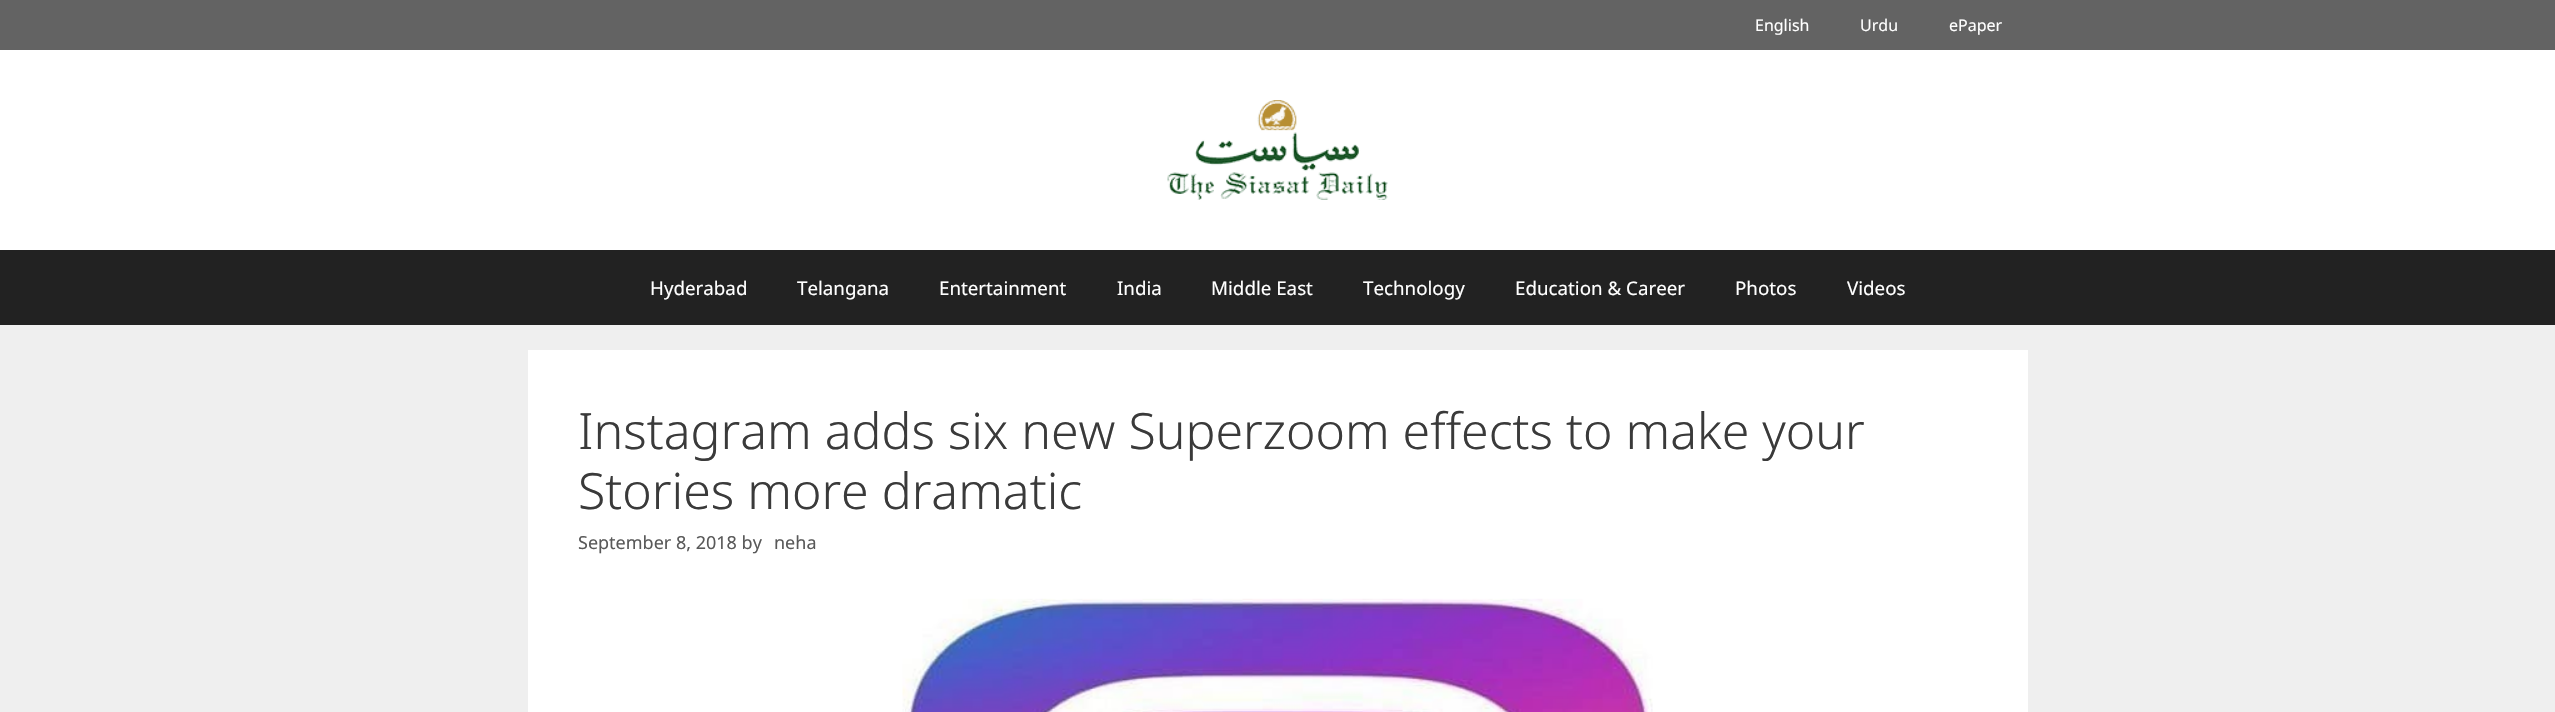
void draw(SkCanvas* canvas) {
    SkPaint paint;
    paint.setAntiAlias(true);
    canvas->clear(0xFFEFEFEF);
    paint.setColor(0xFF636363);
    canvas->drawRect(SkRect::MakeXYWH(0, 0, 2555, 50), paint);
    SkFont font1(fontMgr->matchFamilyStyle("Noto Sans", SkFontStyle::Normal()), 16);
    font1.setSubpixel(true);
    paint.setColor(0xFFFFFFFF);
    canvas->drawString("English", 1755, 31, font1, paint);
    canvas->drawString("Urdu", 1860, 31, font1, paint);
    canvas->drawString("ePaper", 1949, 31, font1, paint);
    canvas->drawRect(SkRect::MakeXYWH(0, 50, 2555, 200), paint);
    canvas->drawImageRect(SkImages::DeferredFromEncodedData(SkData::MakeFromFileName("img1.png")), SkRect::MakeXYWH(1167, 100, 221, 100), SkSamplingOptions());
    paint.setColor(0xFF222222);
    canvas->drawRect(SkRect::MakeXYWH(0, 250, 2555, 75), paint);
    SkFont font2(fontMgr->matchFamilyStyle("Noto Sans", SkFontStyle::Normal()), 18.75f);
    font2.setSubpixel(true);
    paint.setColor(0xFFFFFFFF);
    canvas->drawString("Hyderabad", 650, 295, font2, paint);
    canvas->drawString("Telangana", 797, 295, font2, paint);
    canvas->drawString("Entertainment", 939, 295, font2, paint);
    canvas->drawString("India", 1117, 295, font2, paint);
    canvas->drawString("Middle East", 1211, 295, font2, paint);
    canvas->drawString("Technology", 1363, 295, font2, paint);
    canvas->drawString("Education & Career", 1515, 295, font2, paint);
    canvas->drawString("Photos", 1735, 295, font2, paint);
    canvas->drawString("Videos", 1847, 295, font2, paint);
    canvas->drawRect(SkRect::MakeXYWH(528, 350, 1500, 362), paint);
    SkFont font3(fontMgr->matchFamilyStyle("Noto Sans", SkFontStyle(300, SkFontStyle::kNormal_Width, SkFontStyle::kUpright_Slant)), 50);
    font3.setSubpixel(true);
    paint.setColor(0xFF3A3A3A);
    canvas->drawString("Instagram adds six new Superzoom effects to make your", 578, 449, font3, paint);
    canvas->drawString("Stories more dramatic", 578, 509, font3, paint);
    SkFont font4(fontMgr->matchFamilyStyle("Noto Sans", SkFontStyle::Normal()), 18);
    font4.setSubpixel(true);
    paint.setColor(0xFF595959);
    canvas->drawString("September 8, 2018 by", 578, 549, font4, paint);
    canvas->drawString("neha", 774, 549, font4, paint);
    canvas->drawImageRect(SkImages::DeferredFromEncodedData(SkData::MakeFromFileName("img2.png")), SkRect::MakeXYWH(902, 598, 751, 114), SkSamplingOptions());
}
